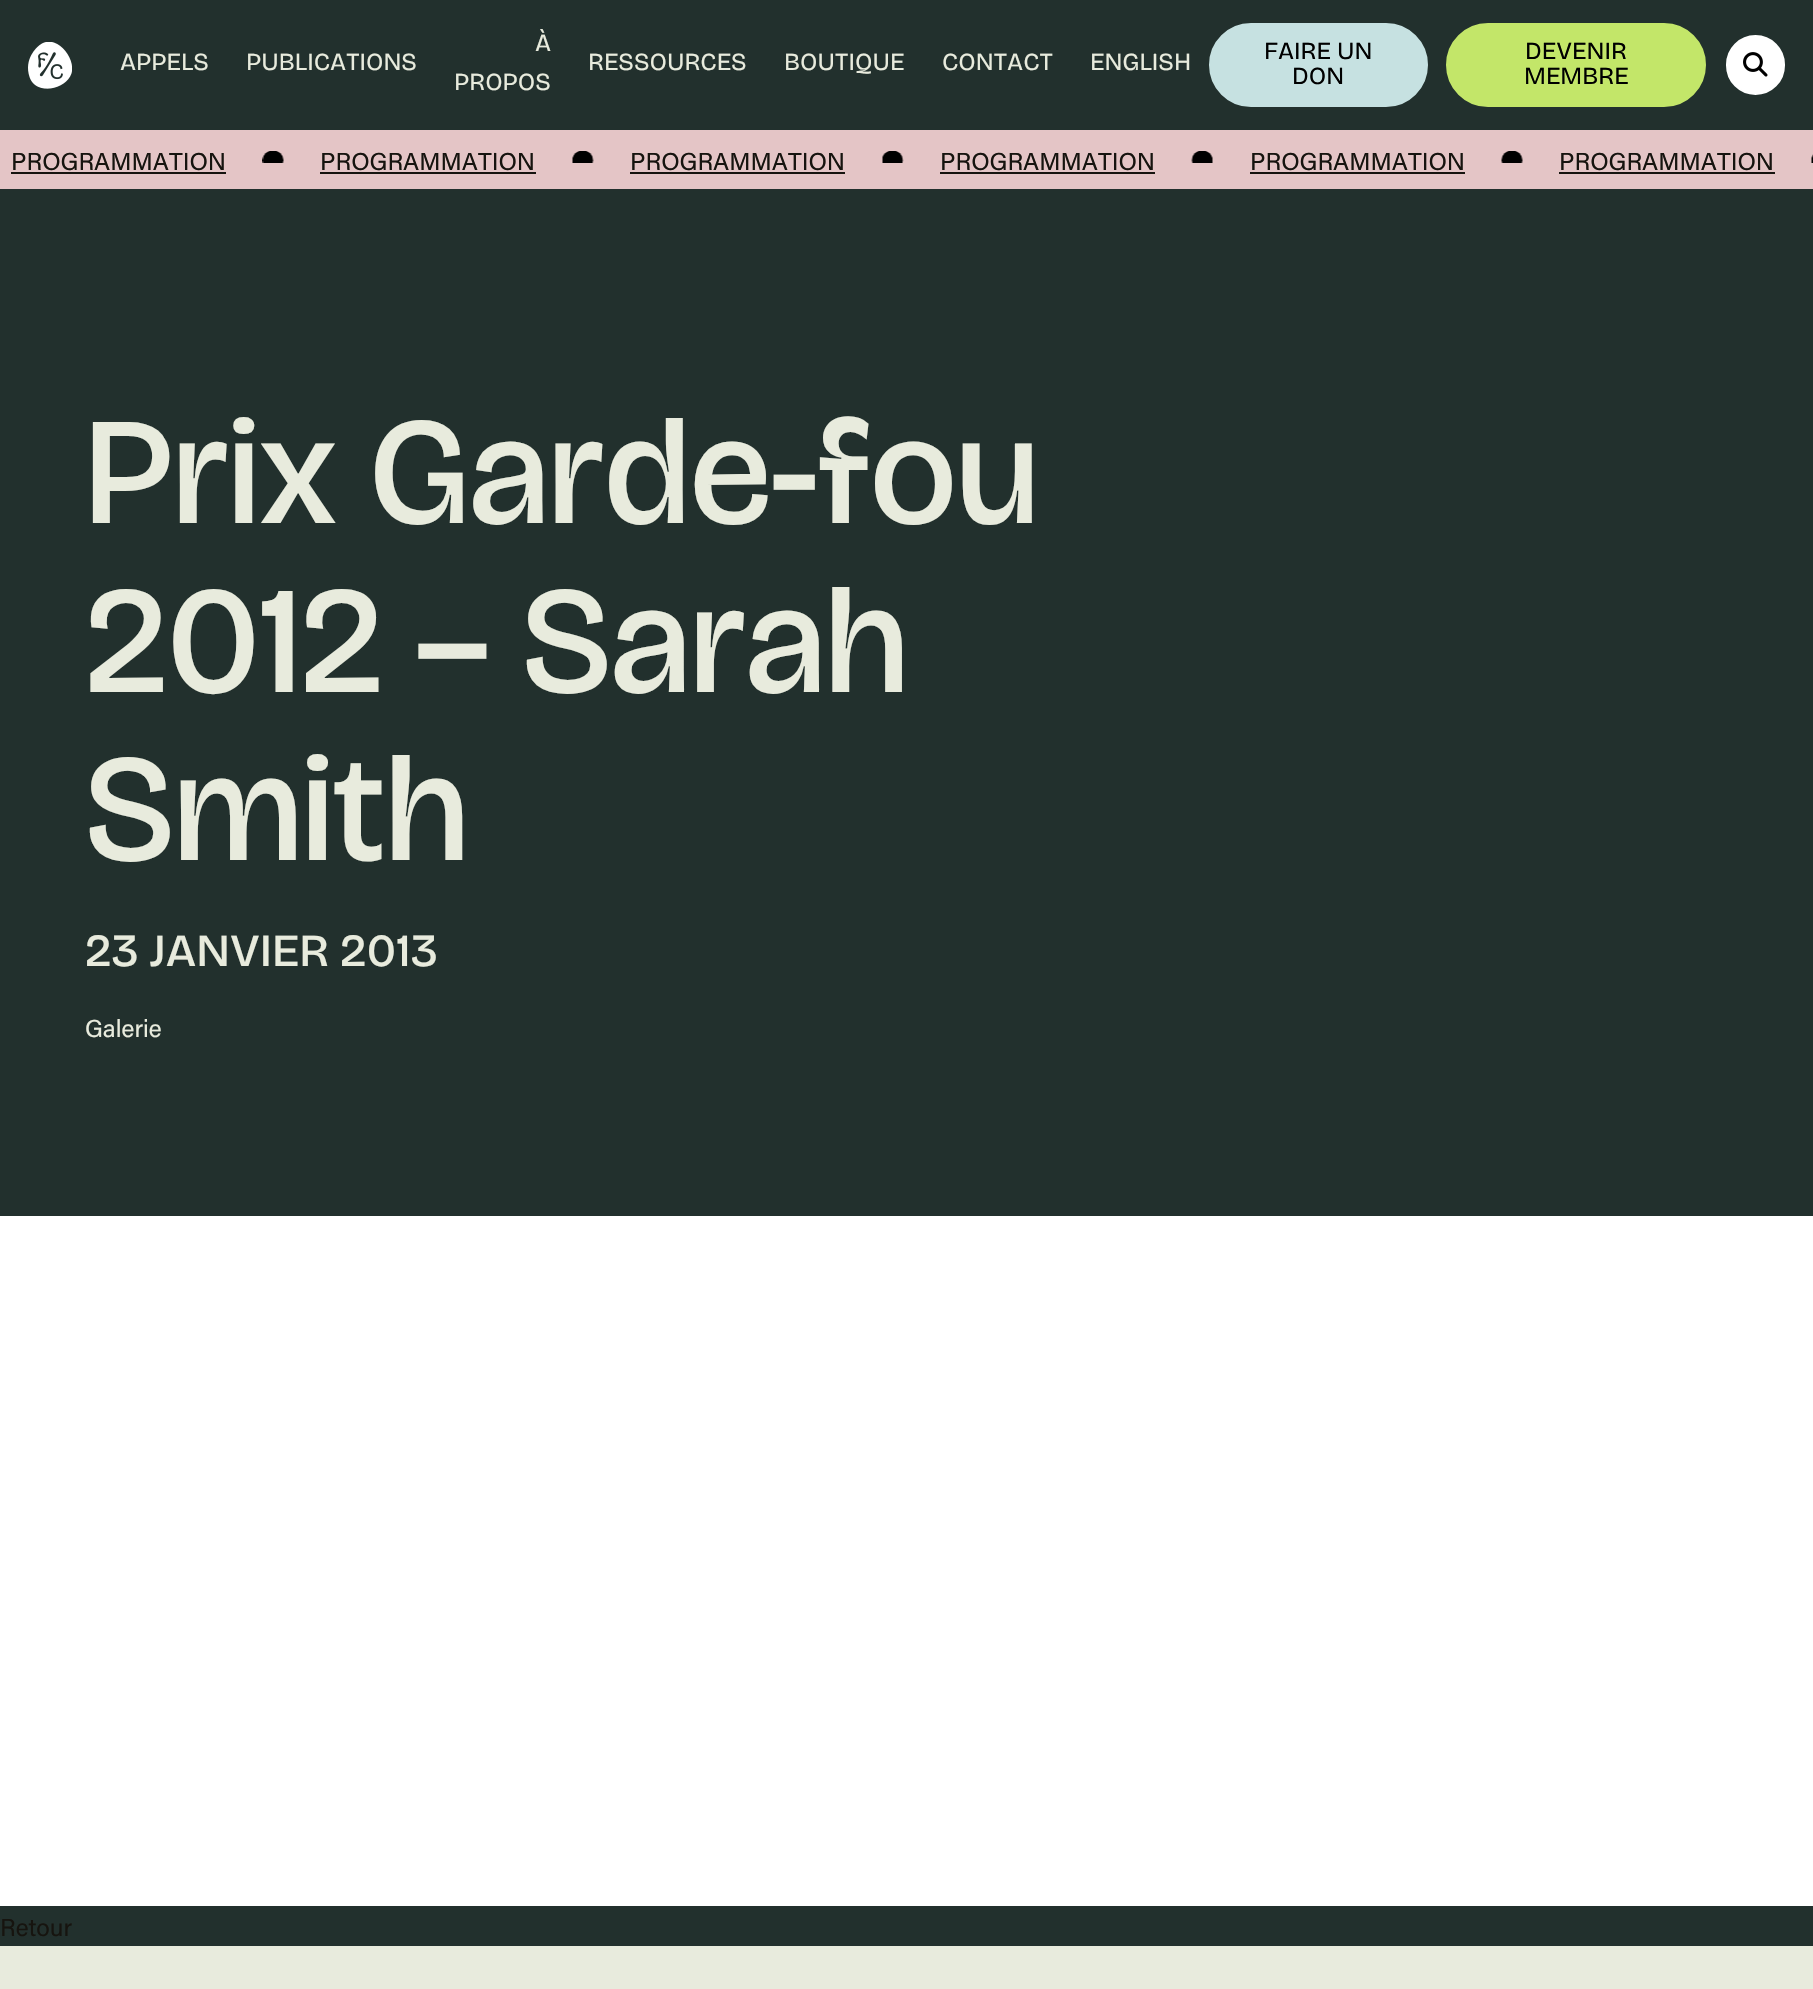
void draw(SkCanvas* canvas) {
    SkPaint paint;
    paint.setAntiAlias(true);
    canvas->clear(0xFF22302D);
    canvas->drawImageRect(SkImages::DeferredFromEncodedData(SkData::MakeFromFileName("img1.png")), SkRect::MakeXYWH(28, 42, 44, 47), SkSamplingOptions());
    SkFont font1(fontMgr->matchFamilyStyle("Bricolage Grotesque", SkFontStyle::Normal()), 24.5f);
    font1.setSubpixel(true);
    paint.setColor(0xFFE8EBDD);
    canvas->drawString("APPELS", 120, 70, font1, paint);
    canvas->drawString("PUBLICATIONS", 246, 70, font1, paint);
    canvas->drawString("À", 535, 51, font1, paint);
    canvas->drawString("PROPOS", 454, 90, font1, paint);
    canvas->drawString("RESSOURCES", 588, 70, font1, paint);
    canvas->drawString("BOUTIQUE", 784, 70, font1, paint);
    canvas->drawString("CONTACT", 942, 70, font1, paint);
    canvas->drawString("ENGLISH", 1090, 70, font1, paint);
    paint.setColor(0xFFC6E1E1);
    canvas->drawRoundRect(SkRect::MakeXYWH(1210, 24, 217, 82), 41, 41, paint);
    paint.setStyle(SkPaint::kStroke_Style);
    paint.setStrokeWidth(2);
    canvas->drawRoundRect(SkRect::MakeXYWH(1210, 24, 217, 82), 41, 41, paint);
    paint.setStyle(SkPaint::kFill_Style);
    paint.setColor(0xFF000000);
    canvas->drawString("FAIRE UN", 1264, 59, font1, paint);
    canvas->drawString("DON", 1292, 84, font1, paint);
    paint.setColor(0xFFC3E669);
    canvas->drawRoundRect(SkRect::MakeXYWH(1447, 24, 258, 82), 41, 41, paint);
    paint.setStyle(SkPaint::kStroke_Style);
    canvas->drawRoundRect(SkRect::MakeXYWH(1447, 24, 258, 82), 41, 41, paint);
    paint.setStyle(SkPaint::kFill_Style);
    paint.setColor(0xFF000000);
    canvas->drawString("DEVENIR", 1525, 59, font1, paint);
    canvas->drawString("MEMBRE", 1524, 84, font1, paint);
    paint.setColor(0xFFFFFFFF);
    canvas->drawRoundRect(SkRect::MakeXYWH(1727, 36, 57, 58), 28.5f, 28.5f, paint);
    paint.setStyle(SkPaint::kStroke_Style);
    canvas->drawRoundRect(SkRect::MakeXYWH(1727, 36, 57, 58), 28.5f, 28.5f, paint);
    canvas->drawImageRect(SkImages::DeferredFromEncodedData(SkData::MakeFromFileName("img2.png")), SkRect::MakeXYWH(1743, 52, 25, 25), SkSamplingOptions());
    paint.setStyle(SkPaint::kFill_Style);
    paint.setColor(0xFFE4C5C6);
    canvas->drawRect(SkRect::MakeXYWH(0, 130, 1813, 59), paint);
    SkFont font2(fontMgr->matchFamilyStyle("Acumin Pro", SkFontStyle::Normal()), 24.5f);
    font2.setSubpixel(true);
    paint.setColor(0xFF16140F);
    canvas->drawString("PROGRAMMATION", 11, 170, font2, paint);
    canvas->drawRect(SkRect::MakeXYWH(11, 172, 215, 2), paint);
    canvas->drawImageRect(SkImages::DeferredFromEncodedData(SkData::MakeFromFileName("img3.png")), SkRect::MakeXYWH(262, 151, 22, 12), SkSamplingOptions());
    canvas->drawString("PROGRAMMATION", 320, 170, font2, paint);
    canvas->drawRect(SkRect::MakeXYWH(320, 172, 216, 2), paint);
    canvas->drawImageRect(SkImages::DeferredFromEncodedData(SkData::MakeFromFileName("img4.png")), SkRect::MakeXYWH(572, 151, 22, 12), SkSamplingOptions());
    canvas->drawString("PROGRAMMATION", 630, 170, font2, paint);
    canvas->drawRect(SkRect::MakeXYWH(630, 172, 215, 2), paint);
    canvas->drawImageRect(SkImages::DeferredFromEncodedData(SkData::MakeFromFileName("img5.png")), SkRect::MakeXYWH(882, 151, 22, 12), SkSamplingOptions());
    canvas->drawString("PROGRAMMATION", 940, 170, font2, paint);
    canvas->drawRect(SkRect::MakeXYWH(940, 172, 215, 2), paint);
    canvas->drawImageRect(SkImages::DeferredFromEncodedData(SkData::MakeFromFileName("img6.png")), SkRect::MakeXYWH(1191, 151, 22, 12), SkSamplingOptions());
    canvas->drawString("PROGRAMMATION", 1250, 170, font2, paint);
    canvas->drawRect(SkRect::MakeXYWH(1250, 172, 215, 2), paint);
    canvas->drawImageRect(SkImages::DeferredFromEncodedData(SkData::MakeFromFileName("img7.png")), SkRect::MakeXYWH(1501, 151, 22, 12), SkSamplingOptions());
    canvas->drawString("PROGRAMMATION", 1559, 170, font2, paint);
    canvas->drawRect(SkRect::MakeXYWH(1559, 172, 216, 2), paint);
    canvas->drawImageRect(SkImages::DeferredFromEncodedData(SkData::MakeFromFileName("img8.png")), SkRect::MakeXYWH(1811, 154, 2, 9), SkSamplingOptions());
    SkFont font3(fontMgr->matchFamilyStyle("Bricolage Grotesque", SkFontStyle(500, SkFontStyle::kNormal_Width, SkFontStyle::kUpright_Slant)), 153);
    font3.setSubpixel(true);
    paint.setColor(0xFFE8EBDD);
    canvas->drawString("Prix Garde-fou", 85, 523, font3, paint);
    canvas->drawString("2012 – Sarah", 85, 692, font3, paint);
    canvas->drawString("Smith", 85, 860, font3, paint);
    SkFont font4(fontMgr->matchFamilyStyle("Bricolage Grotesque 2", SkFontStyle(500, SkFontStyle::kNormal_Width, SkFontStyle::kUpright_Slant)), 46);
    font4.setSubpixel(true);
    canvas->drawString("23 JANVIER 2013", 85, 966, font4, paint);
    canvas->drawString("Galerie", 85, 1037, font2, paint);
    paint.setColor(0xFFFFFFFF);
    canvas->drawRect(SkRect::MakeXYWH(0, 1216, 1813, 690), paint);
    paint.setColor(0xFF16140F);
    canvas->drawString("Retour", 0, 1936, font2, paint);
    paint.setColor(0xFFE8EBDD);
    canvas->drawRect(SkRect::MakeXYWH(0, 1946, 1813, 43), paint);
}
